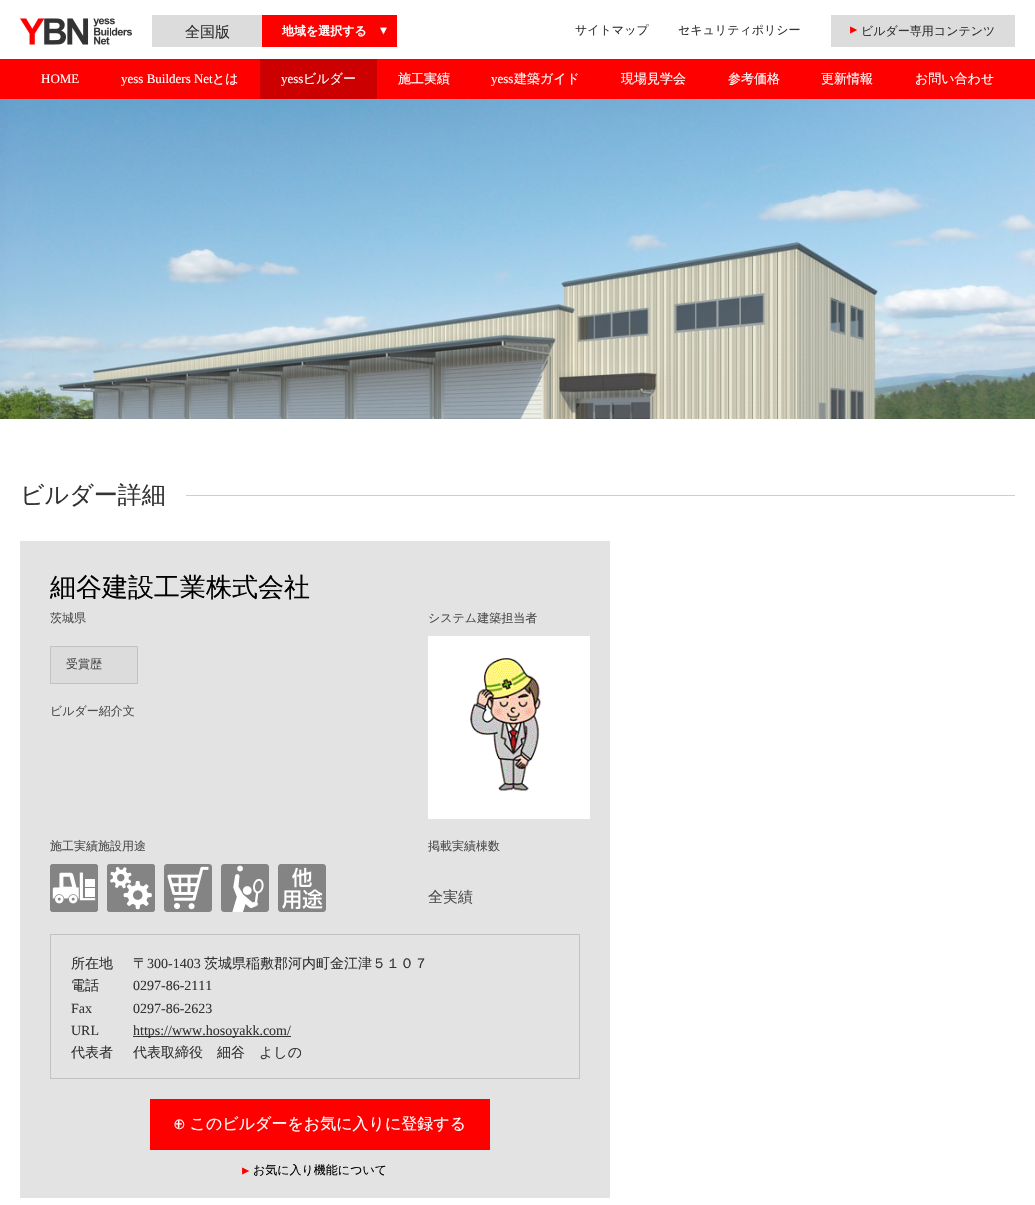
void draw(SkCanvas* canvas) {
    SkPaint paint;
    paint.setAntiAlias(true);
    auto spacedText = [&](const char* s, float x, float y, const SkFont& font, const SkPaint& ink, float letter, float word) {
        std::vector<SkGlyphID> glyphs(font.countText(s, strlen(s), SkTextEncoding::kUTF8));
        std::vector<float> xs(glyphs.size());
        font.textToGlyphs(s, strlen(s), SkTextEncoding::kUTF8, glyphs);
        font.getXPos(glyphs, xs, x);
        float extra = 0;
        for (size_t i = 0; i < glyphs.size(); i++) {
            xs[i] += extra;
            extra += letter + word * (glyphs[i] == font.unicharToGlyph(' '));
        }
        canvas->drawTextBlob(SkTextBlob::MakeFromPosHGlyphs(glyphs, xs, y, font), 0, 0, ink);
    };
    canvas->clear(0xFFFFFFFF);
    canvas->drawImageRect(SkImages::DeferredFromEncodedData(SkData::MakeFromFileName("img1.png")), SkRect::MakeXYWH(20, 18, 112, 27), SkSamplingOptions());
    paint.setColor(0xFFDCDCDC);
    canvas->drawRect(SkRect::MakeXYWH(152, 15, 110, 32), paint);
    SkFont font1(fontMgr->matchFamilyStyle("WenQuanYi Zen Hei", SkFontStyle(500, SkFontStyle::kNormal_Width, SkFontStyle::kUpright_Slant)), 15);
    font1.setSubpixel(true);
    paint.setColor(0xFF333333);
    canvas->drawString("全国版", 185, 37, font1, paint);
    paint.setColor(0xFFFF0000);
    canvas->drawRect(SkRect::MakeXYWH(262, 15, 135, 32), paint);
    SkFont font2(fontMgr->matchFamilyStyle("WenQuanYi Zen Hei", SkFontStyle::Bold()), 12);
    font2.setSubpixel(true);
    paint.setColor(0xFFFFFFFF);
    canvas->drawString("地域を選択する", 282, 35, font2, paint);
    SkFont font3(fontMgr->matchFamilyStyle("Liberation Serif", SkFontStyle::Bold()), 11);
    font3.setSubpixel(true);
    canvas->drawString("▼", 378, 34, font3, paint);
    SkFont font4(fontMgr->matchFamilyStyle("WenQuanYi Zen Hei", SkFontStyle(500, SkFontStyle::kNormal_Width, SkFontStyle::kUpright_Slant)), 12);
    font4.setSubpixel(true);
    paint.setColor(0xFF333333);
    canvas->drawString("サイトマップ", 575, 34, font4, paint);
    canvas->drawString("セキュリティポリシー", 678, 34, font4, paint);
    paint.setColor(0xFFDCDCDC);
    canvas->drawRect(SkRect::MakeXYWH(831, 15, 184, 32), paint);
    SkFont font5(fontMgr->matchFamilyStyle("Liberation Serif", SkFontStyle::Normal()), 12);
    font5.setSubpixel(true);
    paint.setColor(0xFFFF0000);
    canvas->save();
    canvas->rotate(-90, 857, 36);
    canvas->drawString("▼", 857, 36, font5, paint);
    canvas->restore();
    paint.setColor(0xFF333333);
    canvas->drawString("ビルダー専用コンテンツ", 861, 35, font4, paint);
    paint.setColor(0xFFFF0000);
    canvas->drawRect(SkRect::MakeXYWH(0, 59, 1035, 40), paint);
    SkFont font6(fontMgr->matchFamilyStyle("Liberation Serif", SkFontStyle::Normal()), 13);
    font6.setSubpixel(true);
    paint.setColor(0xFFFFFFFF);
    canvas->drawString("HOME", 41, 83, font6, paint);
    canvas->drawString("yess Builders Net", 121, 83, font6, paint);
    SkFont font7(fontMgr->matchFamilyStyle("WenQuanYi Zen Hei", SkFontStyle(500, SkFontStyle::kNormal_Width, SkFontStyle::kUpright_Slant)), 13);
    font7.setSubpixel(true);
    canvas->drawString("とは", 212, 83, font7, paint);
    paint.setColor(0xFFCC0000);
    canvas->drawRect(SkRect::MakeXYWH(260, 59, 117, 40), paint);
    paint.setColor(0xFFFFFFFF);
    canvas->drawString("yess", 281, 83, font6, paint);
    canvas->drawString("ビルダー", 303, 83, font7, paint);
    canvas->drawString("施工実績", 398, 83, font7, paint);
    canvas->drawString("yess", 491, 83, font6, paint);
    canvas->drawString("建築ガイド", 514, 83, font7, paint);
    canvas->drawString("現場見学会", 621, 83, font7, paint);
    canvas->drawString("参考価格", 728, 83, font7, paint);
    canvas->drawString("更新情報", 821, 83, font7, paint);
    canvas->drawString("お問い合わせ", 915, 83, font7, paint);
    canvas->drawImageRect(SkImages::DeferredFromEncodedData(SkData::MakeFromFileName("img2.png")), SkRect::MakeXYWH(0, 99, 1035, 320), SkSamplingOptions());
    SkFont font8(fontMgr->matchFamilyStyle("WenQuanYi Zen Hei", SkFontStyle(500, SkFontStyle::kNormal_Width, SkFontStyle::kUpright_Slant)), 24);
    font8.setSubpixel(true);
    paint.setColor(0xFF333333);
    canvas->drawString("ビルダー詳細", 20, 503, font8, paint);
    paint.setColor(0xFFCECECE);
    canvas->drawRect(SkRect::MakeXYWH(186, 495, 829, 1), paint);
    paint.setColor(0xFFE3E3E3);
    canvas->drawRect(SkRect::MakeXYWH(20, 541, 590, 657), paint);
    SkFont font9(fontMgr->matchFamilyStyle("WenQuanYi Zen Hei", SkFontStyle(500, SkFontStyle::kNormal_Width, SkFontStyle::kUpright_Slant)), 26);
    font9.setSubpixel(true);
    paint.setColor(0xFF000000);
    canvas->drawString("細谷建設工業株式会社", 50, 596, font9, paint);
    paint.setColor(0xFF4D4D4D);
    canvas->drawString("茨城県", 50, 622, font4, paint);
    paint.setColor(0xFFDCDCDC);
    canvas->drawRect(SkRect::MakeXYWH(50.5f, 646.5f, 87, 37), paint);
    paint.setStyle(SkPaint::kStroke_Style);
    paint.setStrokeWidth(1);
    paint.setColor(0xFFC2C2C2);
    canvas->drawRect(SkRect::MakeXYWH(50.5f, 646.5f, 87, 37), paint);
    paint.setStyle(SkPaint::kFill_Style);
    paint.setColor(0xFF4D4D4D);
    canvas->drawString("受賞歴", 66, 668, font4, paint);
    canvas->drawString("ビルダー紹介文", 50, 715, font4, paint);
    canvas->drawString("システム建築担当者", 428, 622, font4, paint);
    canvas->drawImageRect(SkImages::DeferredFromEncodedData(SkData::MakeFromFileName("img3.png")), SkRect::MakeXYWH(428, 636, 162, 183), SkSamplingOptions());
    canvas->drawString("施工実績施設用途", 50, 850, font4, paint);
    canvas->drawImageRect(SkImages::DeferredFromEncodedData(SkData::MakeFromFileName("img4.png")), SkRect::MakeXYWH(50, 864, 48, 48), SkSamplingOptions());
    canvas->drawImageRect(SkImages::DeferredFromEncodedData(SkData::MakeFromFileName("img5.png")), SkRect::MakeXYWH(107, 864, 48, 48), SkSamplingOptions());
    canvas->drawImageRect(SkImages::DeferredFromEncodedData(SkData::MakeFromFileName("img6.png")), SkRect::MakeXYWH(164, 864, 48, 48), SkSamplingOptions());
    canvas->drawImageRect(SkImages::DeferredFromEncodedData(SkData::MakeFromFileName("img7.png")), SkRect::MakeXYWH(221, 864, 48, 48), SkSamplingOptions());
    canvas->drawImageRect(SkImages::DeferredFromEncodedData(SkData::MakeFromFileName("img8.png")), SkRect::MakeXYWH(278, 864, 48, 48), SkSamplingOptions());
    canvas->drawString("掲載実績棟数", 428, 850, font4, paint);
    canvas->drawString("全実績", 428, 902, font1, paint);
    paint.setStyle(SkPaint::kStroke_Style);
    paint.setColor(0xFFC2C2C2);
    canvas->drawRect(SkRect::MakeXYWH(50.5f, 934.5f, 529, 144), paint);
    SkFont font10(fontMgr->matchFamilyStyle("WenQuanYi Zen Hei", SkFontStyle(500, SkFontStyle::kNormal_Width, SkFontStyle::kUpright_Slant)), 14);
    font10.setSubpixel(true);
    paint.setStyle(SkPaint::kFill_Style);
    paint.setColor(0xFF333333);
    canvas->drawString("所在地", 71, 968, font10, paint);
    canvas->drawString("〒", 133, 968, font10, paint);
    SkFont font11(fontMgr->matchFamilyStyle("Liberation Serif", SkFontStyle::Normal()), 14);
    font11.setSubpixel(true);
    canvas->drawString("300-1403", 147, 968, font11, paint);
    canvas->drawString("茨城県稲敷郡河内町金江津５１０７", 204, 968, font10, paint);
    canvas->drawString("電話", 71, 990, font10, paint);
    canvas->drawString("0297-86-2111", 133, 990, font11, paint);
    canvas->drawString("Fax", 71, 1013, font11, paint);
    canvas->drawString("0297-86-2623", 133, 1013, font11, paint);
    canvas->drawString("URL", 71, 1035, font11, paint);
    canvas->drawRect(SkRect::MakeXYWH(133, 1036, 158, 1), paint);
    canvas->drawString("https://www.hosoyakk.com/", 133, 1035, font11, paint);
    canvas->drawString("代表者", 71, 1057, font10, paint);
    canvas->drawString("代表取締役　細谷　よしの", 133, 1057, font10, paint);
    paint.setColor(0xFFFF0000);
    canvas->drawRect(SkRect::MakeXYWH(150, 1099, 340, 51), paint);
    SkFont font12(fontMgr->matchFamilyStyle("WenQuanYi Zen Hei", SkFontStyle(500, SkFontStyle::kNormal_Width, SkFontStyle::kUpright_Slant)), 16);
    font12.setSubpixel(true);
    paint.setColor(0xFFFFFFFF);
    spacedText("⊕ このビルダーをお気に入りに登録する", 173, 1129, font12, paint, 0, -1);
    paint.setColor(0xFFFF0000);
    canvas->save();
    canvas->rotate(-90, 249, 1177);
    canvas->drawString("▼", 249, 1177, font5, paint);
    canvas->restore();
    paint.setColor(0xFF000000);
    canvas->drawString("お気に入り機能について", 253, 1174, font4, paint);
}
